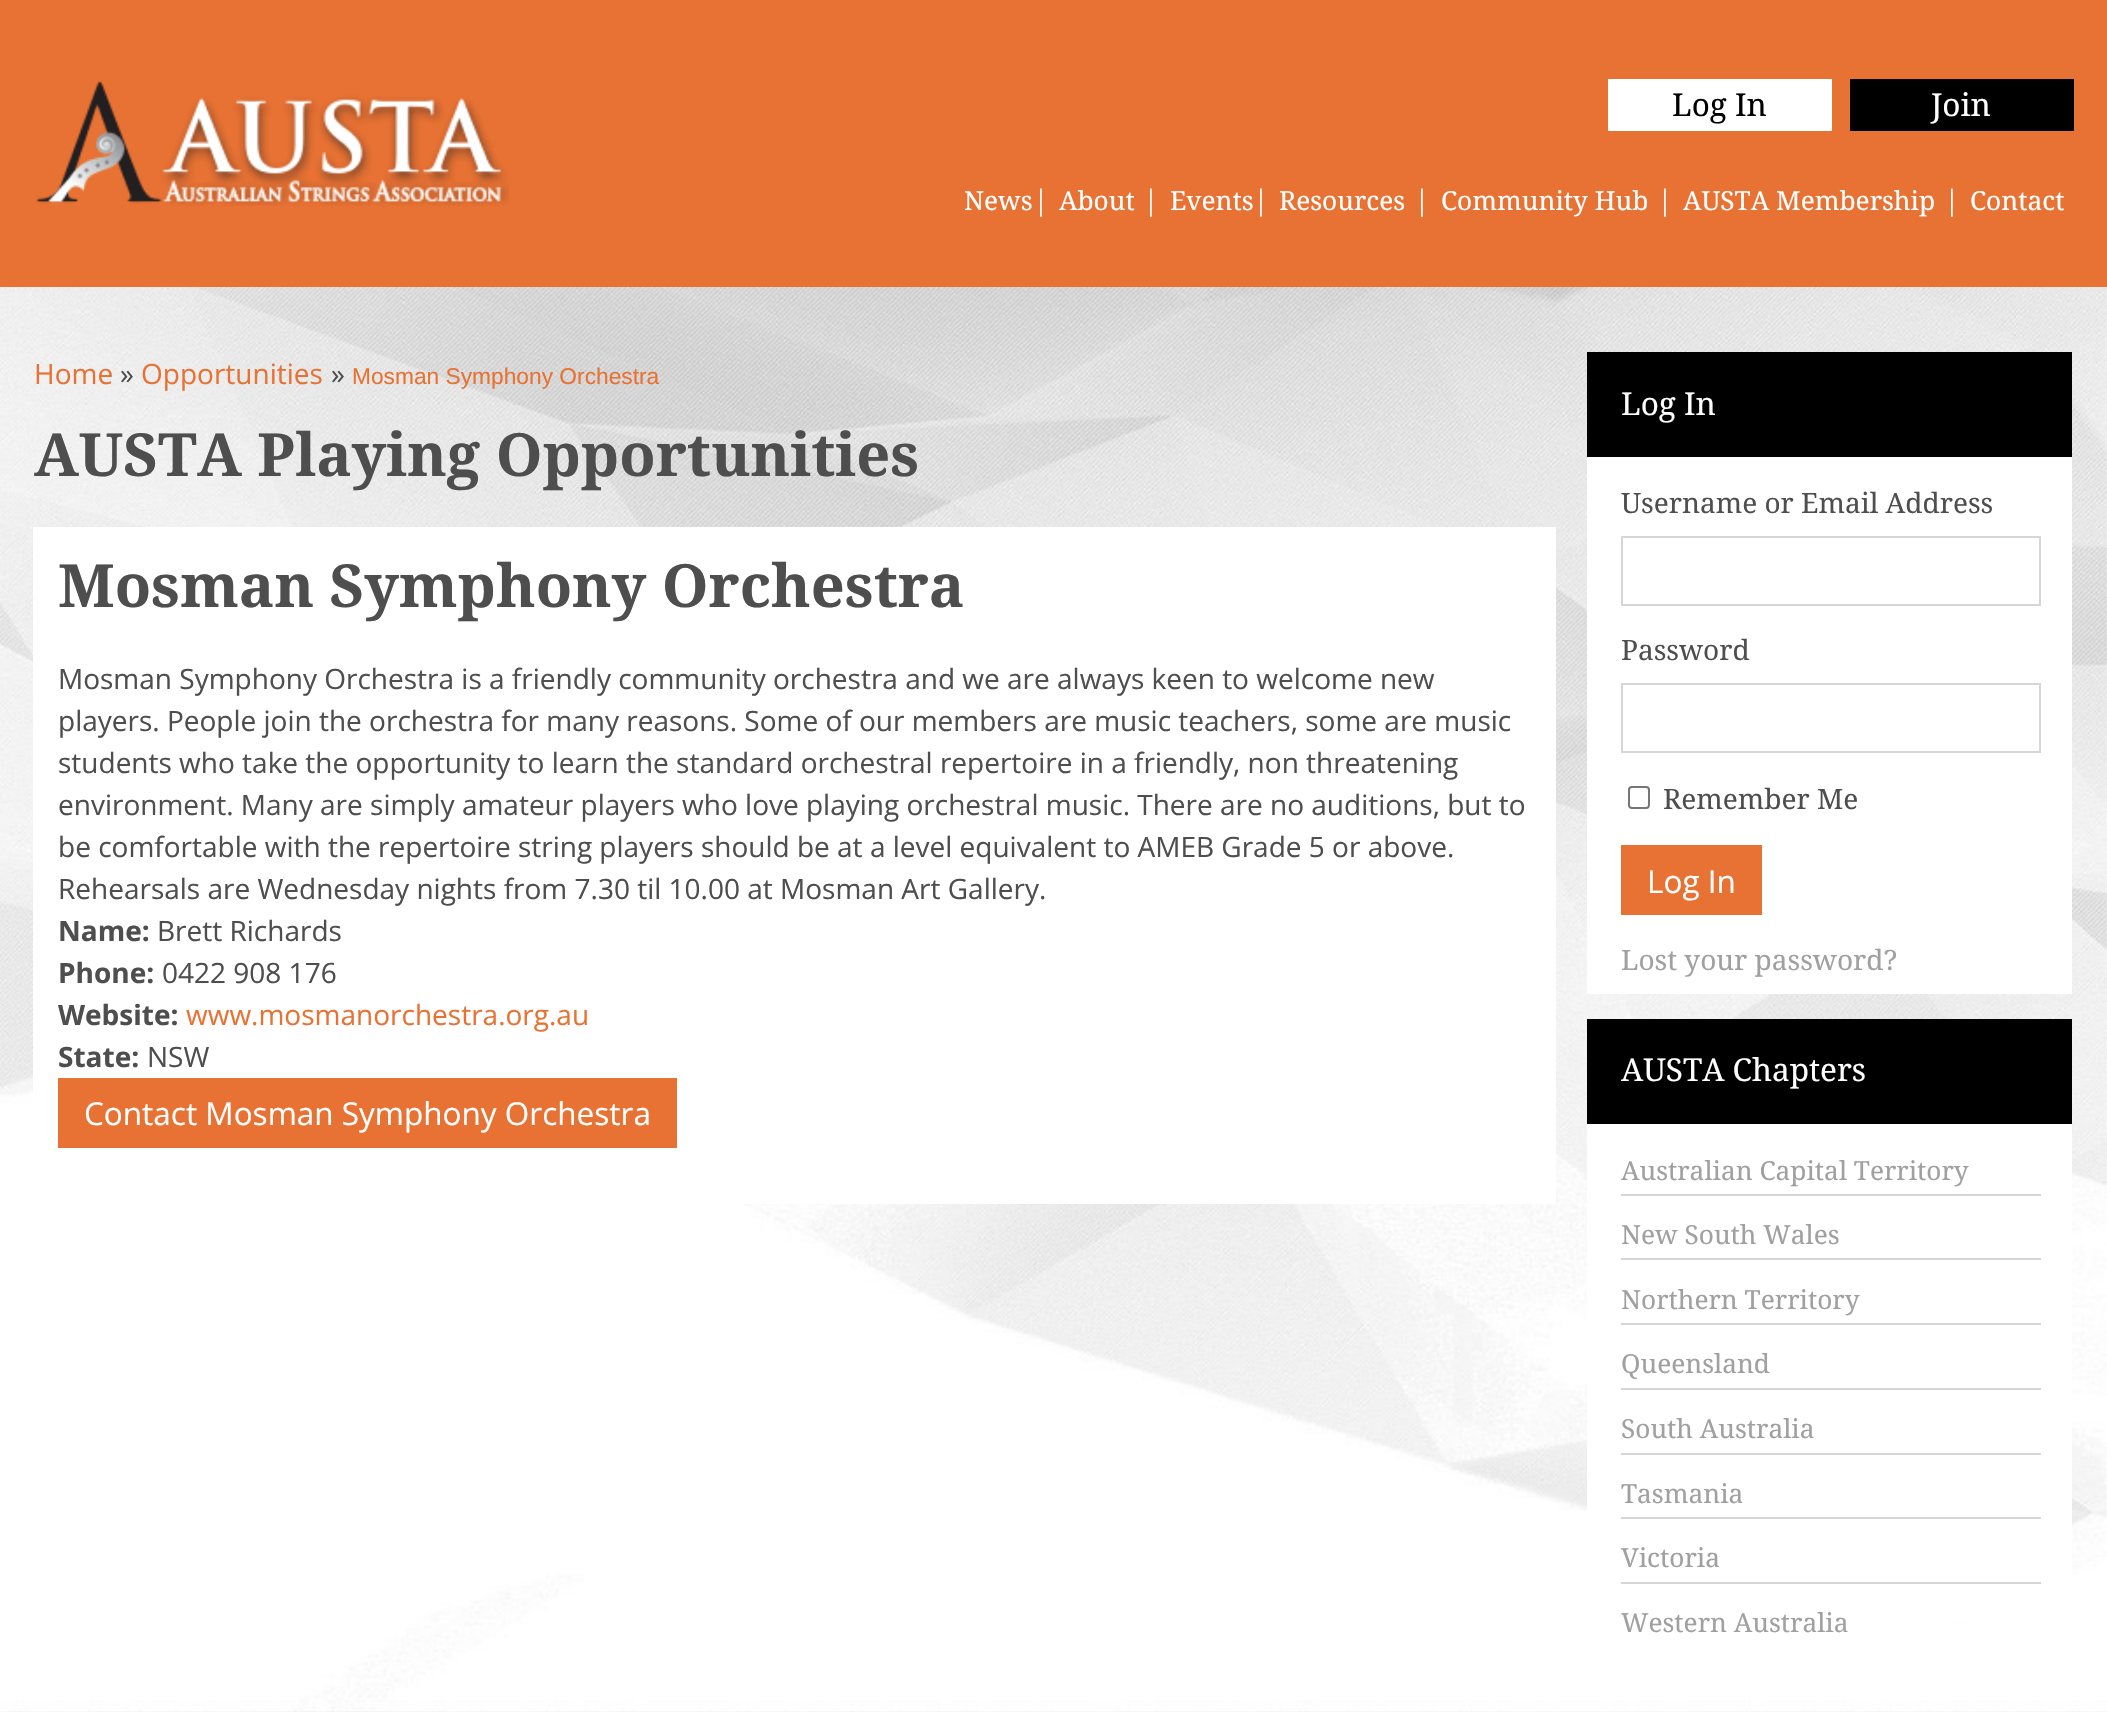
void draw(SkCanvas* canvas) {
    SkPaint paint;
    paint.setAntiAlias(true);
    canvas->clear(0xFFFFFFFF);
    canvas->drawImageRect(SkImages::DeferredFromEncodedData(SkData::MakeFromFileName("img1.png")), SkRect::MakeXYWH(0, 287, 2107, 1425), SkSamplingOptions());
    canvas->drawImageRect(SkImages::DeferredFromEncodedData(SkData::MakeFromFileName("img2.png")), SkRect::MakeXYWH(2106, 287, 1, 896), SkSamplingOptions());
    paint.setColor(0xFFE87233);
    canvas->drawRect(SkRect::MakeXYWH(0, 0, 2107, 287), paint);
    canvas->drawImageRect(SkImages::DeferredFromEncodedData(SkData::MakeFromFileName("img3.png")), SkRect::MakeXYWH(36, 80, 473, 126), SkSamplingOptions());
    paint.setColor(0xFFFFFFFF);
    canvas->drawRect(SkRect::MakeXYWH(1608, 79, 224, 52), paint);
    SkFont font1(fontMgr->matchFamilyStyle("Droid Serif", SkFontStyle::Normal()), 31.5f);
    font1.setSubpixel(true);
    paint.setColor(0xFF000000);
    canvas->drawString("Log In", 1672, 116, font1, paint);
    canvas->drawRect(SkRect::MakeXYWH(1850, 79, 224, 52), paint);
    paint.setColor(0xFFFFFFFF);
    canvas->drawString("Join", 1931, 116, font1, paint);
    SkFont font2(fontMgr->matchFamilyStyle("Droid Serif", SkFontStyle::Normal()), 26.25f);
    font2.setSubpixel(true);
    canvas->drawString("News", 964, 210, font2, paint);
    SkFont font3(fontMgr->matchFamilyStyle("Droid Serif", SkFontStyle::Normal()), 28);
    font3.setSubpixel(true);
    canvas->drawString("|", 1033, 210, font3, paint);
    canvas->drawString("About", 1059, 210, font2, paint);
    canvas->drawString("|", 1143, 210, font3, paint);
    canvas->drawString("Events", 1170, 210, font2, paint);
    canvas->drawString("|", 1253, 210, font3, paint);
    canvas->drawString("Resources", 1279, 210, font2, paint);
    canvas->drawString("|", 1414, 210, font3, paint);
    canvas->drawString("Community Hub", 1441, 210, font2, paint);
    canvas->drawString("|", 1657, 210, font3, paint);
    canvas->drawString("AUSTA Membership", 1683, 210, font2, paint);
    canvas->drawString("|", 1944, 210, font3, paint);
    canvas->drawString("Contact", 1970, 210, font2, paint);
    SkFont font4(fontMgr->matchFamilyStyle("Open Sans", SkFontStyle::Normal()), 28);
    font4.setSubpixel(true);
    paint.setColor(0xFFE87233);
    canvas->drawString("Home", 34, 384, font4, paint);
    paint.setColor(0xFF4E4E4E);
    canvas->drawString("»", 120, 384, font4, paint);
    paint.setColor(0xFFE87233);
    canvas->drawString("Opportunities", 141, 384, font4, paint);
    paint.setColor(0xFF4E4E4E);
    canvas->drawString("»", 331, 384, font4, paint);
    SkFont font5(fontMgr->matchFamilyStyle("Liberation Sans", SkFontStyle::Normal()), 22.75f);
    font5.setSubpixel(true);
    paint.setColor(0xFFE87233);
    canvas->drawString("Mosman Symphony Orchestra", 352, 384, font5, paint);
    SkFont font6(fontMgr->matchFamilyStyle("Droid Serif", SkFontStyle::Bold()), 59.5f);
    font6.setSubpixel(true);
    paint.setColor(0xFF4E4E4E);
    canvas->drawString("AUSTA Playing Opportunities", 34, 476, font6, paint);
    paint.setColor(0xFFFFFFFF);
    canvas->drawRect(SkRect::MakeXYWH(33, 527, 1523, 677), paint);
    paint.setColor(0xFF4E4E4E);
    canvas->drawString("Mosman Symphony Orchestra", 58, 607, font6, paint);
    canvas->drawString("Mosman Symphony Orchestra is a friendly community orchestra and we are always keen to welcome new", 58, 689, font4, paint);
    canvas->drawString("players. People join the orchestra for many reasons. Some of our members are music teachers, some are music", 58, 731, font4, paint);
    canvas->drawString("students who take the opportunity to learn the standard orchestral repertoire in a friendly, non threatening", 58, 773, font4, paint);
    canvas->drawString("environment. Many are simply amateur players who love playing orchestral music. There are no auditions, but to", 58, 815, font4, paint);
    canvas->drawString("be comfortable with the repertoire string players should be at a level equivalent to AMEB Grade 5 or above.", 58, 857, font4, paint);
    canvas->drawString("Rehearsals are Wednesday nights from 7.30 til 10.00 at Mosman Art Gallery.", 58, 899, font4, paint);
    SkFont font7(fontMgr->matchFamilyStyle("Open Sans", SkFontStyle::Bold()), 28);
    font7.setSubpixel(true);
    canvas->drawString("Name:", 58, 941, font7, paint);
    canvas->drawString("Brett Richards", 157, 941, font4, paint);
    canvas->drawString("Phone:", 58, 983, font7, paint);
    canvas->drawString("0422 908 176", 162, 983, font4, paint);
    canvas->drawString("Website:", 58, 1025, font7, paint);
    paint.setColor(0xFFE87233);
    canvas->drawString("www.mosmanorchestra.org.au", 186, 1025, font4, paint);
    paint.setColor(0xFF4E4E4E);
    canvas->drawString("State:", 58, 1067, font7, paint);
    canvas->drawString("NSW", 147, 1067, font4, paint);
    paint.setColor(0xFFE87233);
    canvas->drawRect(SkRect::MakeXYWH(58, 1078, 619, 70), paint);
    SkFont font8(fontMgr->matchFamilyStyle("Open Sans", SkFontStyle::Normal()), 31.5f);
    font8.setSubpixel(true);
    paint.setColor(0xFFFFFFFF);
    canvas->drawString("Contact Mosman Symphony Orchestra", 84, 1125, font8, paint);
    canvas->drawRect(SkRect::MakeXYWH(1587, 457, 485, 537), paint);
    paint.setColor(0xFF000000);
    canvas->drawRect(SkRect::MakeXYWH(1587, 352, 485, 105), paint);
    paint.setColor(0xFFFFFFFF);
    canvas->drawString("Log In", 1621, 415, font1, paint);
    paint.setColor(0xFF4E4E4E);
    canvas->drawString("Username or Email Address", 1621, 513, font3, paint);
    paint.setStyle(SkPaint::kStroke_Style);
    paint.setStrokeWidth(2);
    paint.setColor(0xFFD6D6D6);
    canvas->drawRect(SkRect::MakeXYWH(1622, 537, 418, 68), paint);
    paint.setStyle(SkPaint::kFill_Style);
    paint.setColor(0xFF4E4E4E);
    canvas->drawString("Password", 1621, 660, font3, paint);
    paint.setStyle(SkPaint::kStroke_Style);
    paint.setColor(0xFFD6D6D6);
    canvas->drawRect(SkRect::MakeXYWH(1622, 684, 418, 68), paint);
    paint.setColor(0xFF767676);
    canvas->drawRoundRect(SkRect::MakeXYWH(1629, 787, 20, 21), 3, 3, paint);
    paint.setStyle(SkPaint::kFill_Style);
    paint.setColor(0xFF4E4E4E);
    canvas->drawString("Remember Me", 1663, 809, font3, paint);
    paint.setColor(0xFFE87233);
    canvas->drawRect(SkRect::MakeXYWH(1621, 845, 141, 70), paint);
    paint.setColor(0xFFFFFFFF);
    canvas->drawString("Log In", 1647, 893, font8, paint);
    paint.setColor(0xFFA0A0A0);
    canvas->drawString("Lost your password?", 1621, 970, font3, paint);
    paint.setColor(0xFFFFFFFF);
    canvas->drawRect(SkRect::MakeXYWH(1587, 1124, 485, 498), paint);
    paint.setColor(0xFF000000);
    canvas->drawRect(SkRect::MakeXYWH(1587, 1019, 485, 105), paint);
    paint.setColor(0xFFFFFFFF);
    canvas->drawString("AUSTA Chapters", 1621, 1081, font1, paint);
    paint.setColor(0xFFD6D6D6);
    canvas->drawRect(SkRect::MakeXYWH(1621, 1194, 420, 2), paint);
    paint.setColor(0xFFA0A0A0);
    canvas->drawString("Australian Capital Territory", 1621, 1180, font2, paint);
    paint.setColor(0xFFD6D6D6);
    canvas->drawRect(SkRect::MakeXYWH(1621, 1258, 420, 2), paint);
    paint.setColor(0xFFA0A0A0);
    canvas->drawString("New South Wales", 1621, 1244, font2, paint);
    paint.setColor(0xFFD6D6D6);
    canvas->drawRect(SkRect::MakeXYWH(1621, 1323, 420, 2), paint);
    paint.setColor(0xFFA0A0A0);
    canvas->drawString("Northern Territory", 1621, 1309, font2, paint);
    paint.setColor(0xFFD6D6D6);
    canvas->drawRect(SkRect::MakeXYWH(1621, 1388, 420, 2), paint);
    paint.setColor(0xFFA0A0A0);
    canvas->drawString("Queensland", 1621, 1373, font2, paint);
    paint.setColor(0xFFD6D6D6);
    canvas->drawRect(SkRect::MakeXYWH(1621, 1453, 420, 2), paint);
    paint.setColor(0xFFA0A0A0);
    canvas->drawString("South Australia", 1621, 1438, font2, paint);
    paint.setColor(0xFFD6D6D6);
    canvas->drawRect(SkRect::MakeXYWH(1621, 1517, 420, 2), paint);
    paint.setColor(0xFFA0A0A0);
    canvas->drawString("Tasmania", 1621, 1503, font2, paint);
    paint.setColor(0xFFD6D6D6);
    canvas->drawRect(SkRect::MakeXYWH(1621, 1582, 420, 2), paint);
    paint.setColor(0xFFA0A0A0);
    canvas->drawString("Victoria", 1621, 1567, font2, paint);
    canvas->drawString("Western Australia", 1621, 1632, font2, paint);
}
